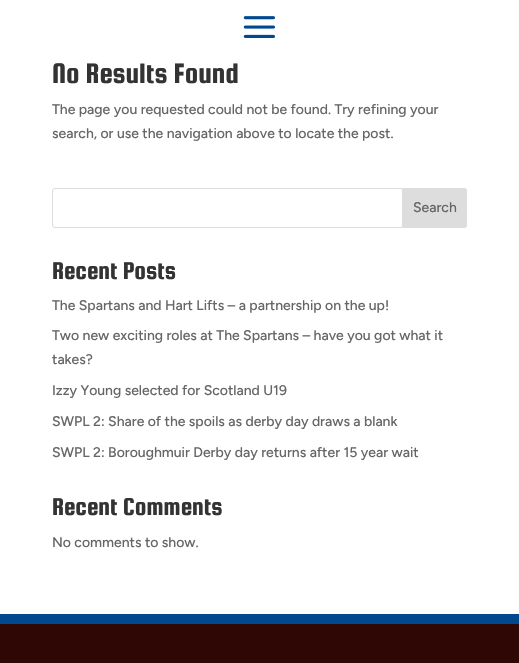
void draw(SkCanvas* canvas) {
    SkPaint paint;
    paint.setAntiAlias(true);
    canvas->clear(0xFFFFFFFF);
    canvas->drawImageRect(SkImages::DeferredFromEncodedData(SkData::MakeFromFileName("img1.png")), SkRect::MakeXYWH(243, 16, 32, 22), SkSamplingOptions());
    SkFont font1(fontMgr->matchFamilyStyle("Squada One", SkFontStyle::Normal()), 30);
    font1.setSubpixel(true);
    paint.setColor(0xFF333333);
    canvas->drawString("No Results Found", 52, 83, font1, paint);
    SkFont font2(fontMgr->matchFamilyStyle("Figtree", SkFontStyle(500, SkFontStyle::kNormal_Width, SkFontStyle::kUpright_Slant)), 14);
    font2.setSubpixel(true);
    paint.setColor(0xFF666666);
    canvas->drawString("The page you requested could not be found. Try refining your", 52, 114, font2, paint);
    canvas->drawString("search, or use the navigation above to locate the post.", 52, 138, font2, paint);
    paint.setStyle(SkPaint::kStroke_Style);
    paint.setStrokeWidth(1);
    paint.setColor(0xFFDDDDDD);
    canvas->drawRoundRect(SkRect::MakeXYWH(52.5f, 188.5f, 414, 39), 2.5f, 2.5f, paint);
    paint.setStyle(SkPaint::kFill_Style);
    canvas->drawPath(SkPathBuilder().moveTo(402.5f, 188.5f).lineTo(464, 188.5f).cubicTo(465.5f, 188.5f, 466.5f, 189.5f, 466.5f, 191).lineTo(466.5f, 225).cubicTo(466.5f, 226.5f, 465.5f, 227.5f, 464, 227.5f).lineTo(402.5f, 227.5f).close().detach(), paint);
    paint.setStyle(SkPaint::kStroke_Style);
    canvas->drawPath(SkPathBuilder().moveTo(402.5f, 188.5f).lineTo(464, 188.5f).cubicTo(465.5f, 188.5f, 466.5f, 189.5f, 466.5f, 191).lineTo(466.5f, 225).cubicTo(466.5f, 226.5f, 465.5f, 227.5f, 464, 227.5f).lineTo(402.5f, 227.5f).close().detach(), paint);
    paint.setStyle(SkPaint::kFill_Style);
    paint.setColor(0xFF666666);
    canvas->drawString("Search", 413, 212, font2, paint);
    SkFont font3(fontMgr->matchFamilyStyle("Squada One", SkFontStyle::Normal()), 26);
    font3.setSubpixel(true);
    paint.setColor(0xFF333333);
    canvas->drawString("Recent Posts", 52, 279, font3, paint);
    paint.setColor(0xFF666666);
    canvas->drawString("The Spartans and Hart Lifts – a partnership on the up!", 52, 310, font2, paint);
    canvas->drawString("Two new exciting roles at The Spartans – have you got what it", 52, 340, font2, paint);
    canvas->drawString("takes?", 52, 364, font2, paint);
    canvas->drawString("Izzy Young selected for Scotland U19", 52, 395, font2, paint);
    canvas->drawString("SWPL 2: Share of the spoils as derby day draws a blank", 52, 426, font2, paint);
    canvas->drawString("SWPL 2: Boroughmuir Derby day returns after 15 year wait", 52, 457, font2, paint);
    paint.setColor(0xFF333333);
    canvas->drawString("Recent Comments", 52, 515, font3, paint);
    paint.setColor(0xFF666666);
    canvas->drawString("No comments to show.", 52, 547, font2, paint);
    paint.setColor(0xFF2F0704);
    canvas->drawRect(SkRect::MakeXYWH(0, 624, 519, 39), paint);
    paint.setColor(0xFF004890);
    canvas->drawRect(SkRect::MakeXYWH(0, 614, 519, 10), paint);
}
